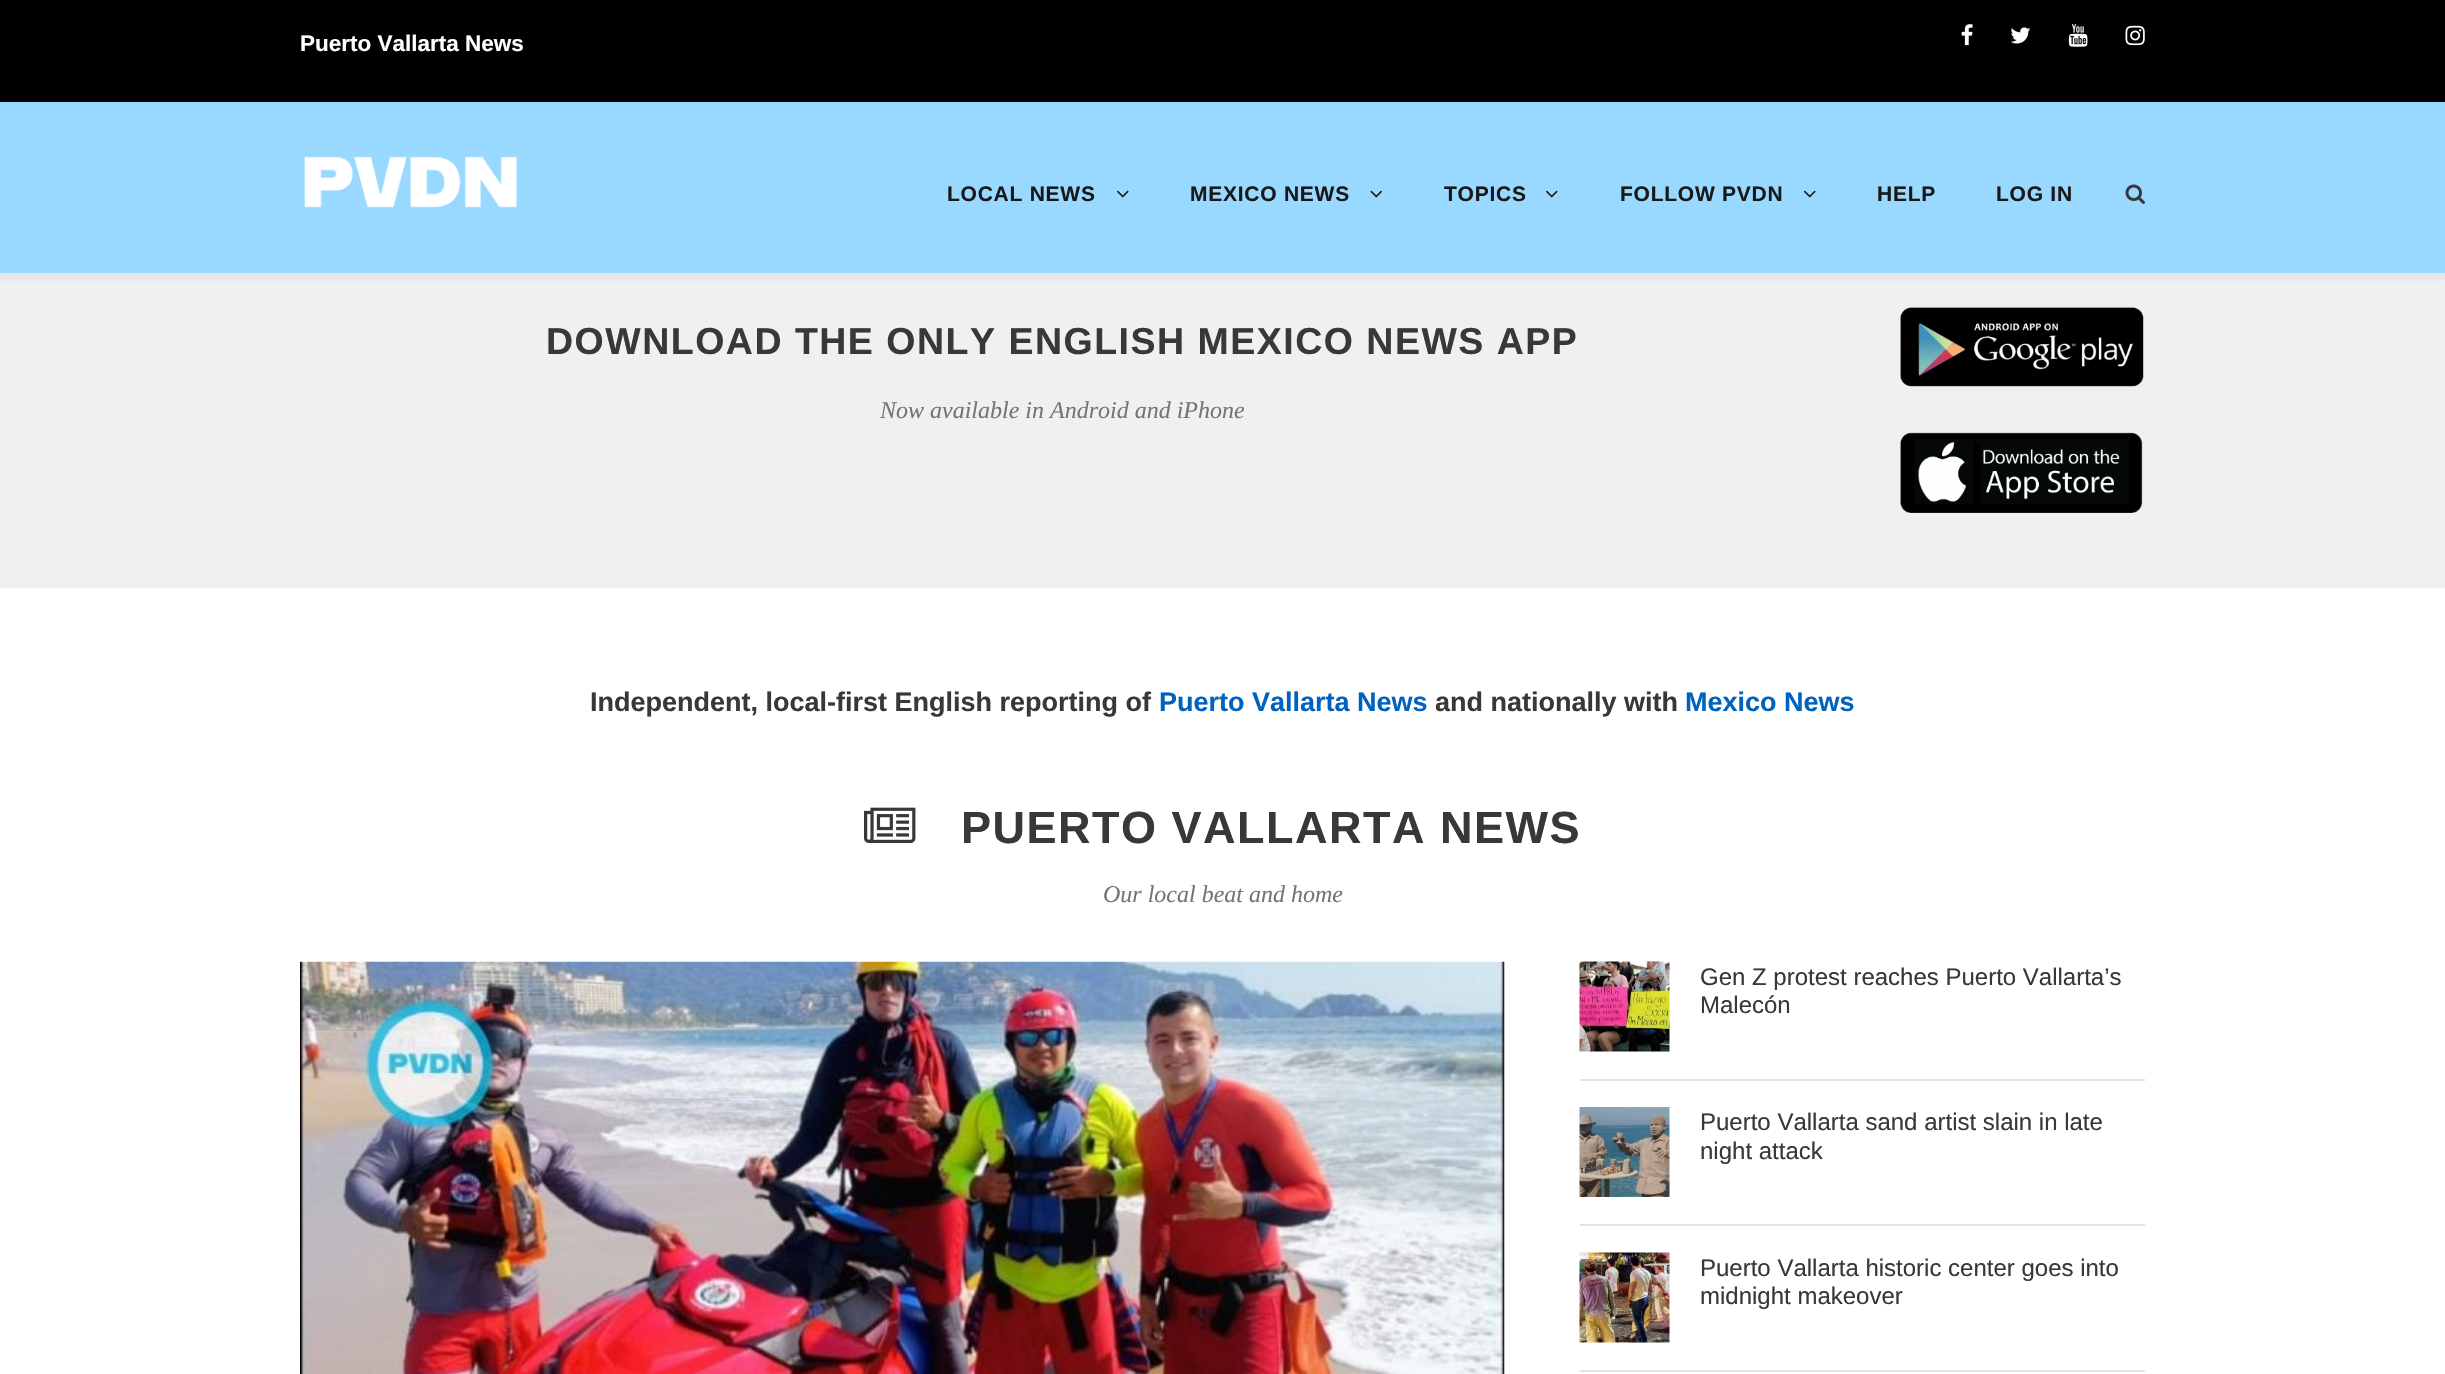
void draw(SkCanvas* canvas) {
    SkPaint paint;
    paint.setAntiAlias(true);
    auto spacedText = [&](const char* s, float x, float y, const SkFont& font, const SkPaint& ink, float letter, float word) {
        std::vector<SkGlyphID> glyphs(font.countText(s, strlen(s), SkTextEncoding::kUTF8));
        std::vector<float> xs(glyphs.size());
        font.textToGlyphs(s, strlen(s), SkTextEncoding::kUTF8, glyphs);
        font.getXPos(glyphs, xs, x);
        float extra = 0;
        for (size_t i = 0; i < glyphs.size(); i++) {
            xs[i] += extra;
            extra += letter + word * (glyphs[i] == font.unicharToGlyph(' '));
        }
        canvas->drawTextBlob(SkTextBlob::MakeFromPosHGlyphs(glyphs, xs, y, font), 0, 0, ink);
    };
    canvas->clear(0xFFFFFFFF);
    paint.setColor(0xFF000000);
    canvas->drawRect(SkRect::MakeXYWH(0, 0, 2445, 102), paint);
    SkFont font1(fontMgr->matchFamilyStyle("Liberation Sans", SkFontStyle::Bold()), 22.5f);
    font1.setSubpixel(true);
    paint.setColor(0xFFFFFFFF);
    canvas->drawString("Puerto Vallarta News", 300, 51, font1, paint);
    canvas->drawImageRect(SkImages::DeferredFromEncodedData(SkData::MakeFromFileName("img1.png")), SkRect::MakeXYWH(1961, 24, 12, 22), SkSamplingOptions());
    canvas->drawImageRect(SkImages::DeferredFromEncodedData(SkData::MakeFromFileName("img2.png")), SkRect::MakeXYWH(2010, 27, 21, 17), SkSamplingOptions());
    canvas->drawImageRect(SkImages::DeferredFromEncodedData(SkData::MakeFromFileName("img3.png")), SkRect::MakeXYWH(2068, 24, 20, 23), SkSamplingOptions());
    canvas->drawImageRect(SkImages::DeferredFromEncodedData(SkData::MakeFromFileName("img4.png")), SkRect::MakeXYWH(2125, 25, 20, 21), SkSamplingOptions());
    paint.setColor(0xFFF0F0F0);
    canvas->drawRect(SkRect::MakeXYWH(0, 278, 2445, 310), paint);
    paint.setColor(0x1A000000);
    paint.setMaskFilter(SkMaskFilter::MakeBlur(kNormal_SkBlurStyle, 2));
    canvas->drawRect(SkRect::MakeXYWH(0, 102, 2445, 176), paint);
    paint.setMaskFilter(nullptr);
    paint.setColor(0xFFE8E8E8);
    canvas->drawRect(SkRect::MakeXYWH(0, 273, 2445, 5), paint);
    paint.setColor(0xFF99D9FF);
    canvas->drawRect(SkRect::MakeXYWH(0, 102, 2445, 171), paint);
    canvas->drawImageRect(SkImages::DeferredFromEncodedData(SkData::MakeFromFileName("img5.png")), SkRect::MakeXYWH(304, 156, 213, 52), SkSamplingOptions());
    SkFont font2(fontMgr->matchFamilyStyle("Liberation Sans", SkFontStyle::Bold()), 21);
    font2.setSubpixel(true);
    paint.setColor(0xFF181818);
    spacedText("LOCAL NEWS", 947, 201, font2, paint, 0.75f, 0);
    canvas->drawImageRect(SkImages::DeferredFromEncodedData(SkData::MakeFromFileName("img6.png")), SkRect::MakeXYWH(1116, 190, 13, 8), SkSamplingOptions());
    spacedText("MEXICO NEWS", 1190, 201, font2, paint, 0.75f, 0);
    canvas->drawImageRect(SkImages::DeferredFromEncodedData(SkData::MakeFromFileName("img7.png")), SkRect::MakeXYWH(1370, 190, 13, 8), SkSamplingOptions());
    spacedText("TOPICS", 1444, 201, font2, paint, 0.75f, 0);
    canvas->drawImageRect(SkImages::DeferredFromEncodedData(SkData::MakeFromFileName("img6.png")), SkRect::MakeXYWH(1545, 190, 13, 8), SkSamplingOptions());
    spacedText("FOLLOW PVDN", 1620, 201, font2, paint, 0.75f, 0);
    canvas->drawImageRect(SkImages::DeferredFromEncodedData(SkData::MakeFromFileName("img6.png")), SkRect::MakeXYWH(1803, 190, 13, 8), SkSamplingOptions());
    spacedText("HELP", 1877, 201, font2, paint, 0.75f, 0);
    spacedText("LOG IN", 1996, 201, font2, paint, 0.75f, 0);
    canvas->drawImageRect(SkImages::DeferredFromEncodedData(SkData::MakeFromFileName("img8.png")), SkRect::MakeXYWH(2125, 184, 20, 20), SkSamplingOptions());
    SkFont font3(fontMgr->matchFamilyStyle("Liberation Sans", SkFontStyle::Bold()), 37.5f);
    font3.setSubpixel(true);
    paint.setColor(0xFF383838);
    spacedText("DOWNLOAD THE ONLY ENGLISH MEXICO NEWS APP", 546, 354, font3, paint, 1.5f, 0);
    SkFont font4(fontMgr->matchFamilyStyle("Liberation Serif", SkFontStyle::Italic()), 24);
    font4.setSubpixel(true);
    paint.setColor(0xFF747474);
    canvas->drawString("Now available in Android and iPhone", 880, 418, font4, paint);
    canvas->drawImageRect(SkImages::DeferredFromEncodedData(SkData::MakeFromFileName("img9.png")), SkRect::MakeXYWH(1900, 307, 244, 80), SkSamplingOptions());
    canvas->drawImageRect(SkImages::DeferredFromEncodedData(SkData::MakeFromFileName("img10.png")), SkRect::MakeXYWH(1900, 432, 243, 81), SkSamplingOptions());
    SkFont font5(fontMgr->matchFamilyStyle("Liberation Sans", SkFontStyle::Bold()), 27);
    font5.setSubpixel(true);
    paint.setColor(0xFF383838);
    canvas->drawString("Independent, local-first English reporting of", 590, 711, font5, paint);
    paint.setColor(0xFF0062BF);
    canvas->drawString("Puerto Vallarta News", 1159, 711, font5, paint);
    paint.setColor(0xFF383838);
    canvas->drawString("and nationally with", 1435, 711, font5, paint);
    paint.setColor(0xFF0062BF);
    canvas->drawString("Mexico News", 1685, 711, font5, paint);
    canvas->drawImageRect(SkImages::DeferredFromEncodedData(SkData::MakeFromFileName("img11.png")), SkRect::MakeXYWH(864, 807, 52, 36), SkSamplingOptions());
    SkFont font6(fontMgr->matchFamilyStyle("Liberation Sans", SkFontStyle::Bold()), 45);
    font6.setSubpixel(true);
    paint.setColor(0xFF383838);
    spacedText("PUERTO VALLARTA NEWS", 961, 843, font6, paint, 1.5f, 0);
    paint.setColor(0xFF747474);
    canvas->drawString("Our local beat and home", 1103, 902, font4, paint);
    canvas->drawImageRect(SkImages::DeferredFromEncodedData(SkData::MakeFromFileName("img12.png")), SkRect::MakeXYWH(300, 961, 1205, 413), SkSamplingOptions());
    canvas->drawImageRect(SkImages::DeferredFromEncodedData(SkData::MakeFromFileName("img13.png")), SkRect::MakeXYWH(1579, 961, 91, 91), SkSamplingOptions());
    SkFont font7(fontMgr->matchFamilyStyle("Liberation Sans", SkFontStyle::Normal()), 24);
    font7.setSubpixel(true);
    paint.setColor(0xFF383838);
    canvas->drawString("Gen Z protest reaches Puerto Vallarta’s", 1700, 985, font7, paint);
    canvas->drawString("Malecón", 1700, 1013, font7, paint);
    paint.setColor(0xFFE2E2E2);
    canvas->drawRect(SkRect::MakeXYWH(1580, 1079, 565, 2), paint);
    canvas->drawImageRect(SkImages::DeferredFromEncodedData(SkData::MakeFromFileName("img14.png")), SkRect::MakeXYWH(1579, 1107, 91, 90), SkSamplingOptions());
    paint.setColor(0xFF383838);
    canvas->drawString("Puerto Vallarta sand artist slain in late", 1700, 1130, font7, paint);
    canvas->drawString("night attack", 1700, 1159, font7, paint);
    paint.setColor(0xFFE2E2E2);
    canvas->drawRect(SkRect::MakeXYWH(1580, 1224, 565, 2), paint);
    canvas->drawImageRect(SkImages::DeferredFromEncodedData(SkData::MakeFromFileName("img15.png")), SkRect::MakeXYWH(1579, 1252, 91, 91), SkSamplingOptions());
    paint.setColor(0xFF383838);
    canvas->drawString("Puerto Vallarta historic center goes into", 1700, 1276, font7, paint);
    canvas->drawString("midnight makeover", 1700, 1304, font7, paint);
    paint.setColor(0xFFE2E2E2);
    canvas->drawRect(SkRect::MakeXYWH(1580, 1370, 565, 2), paint);
}
